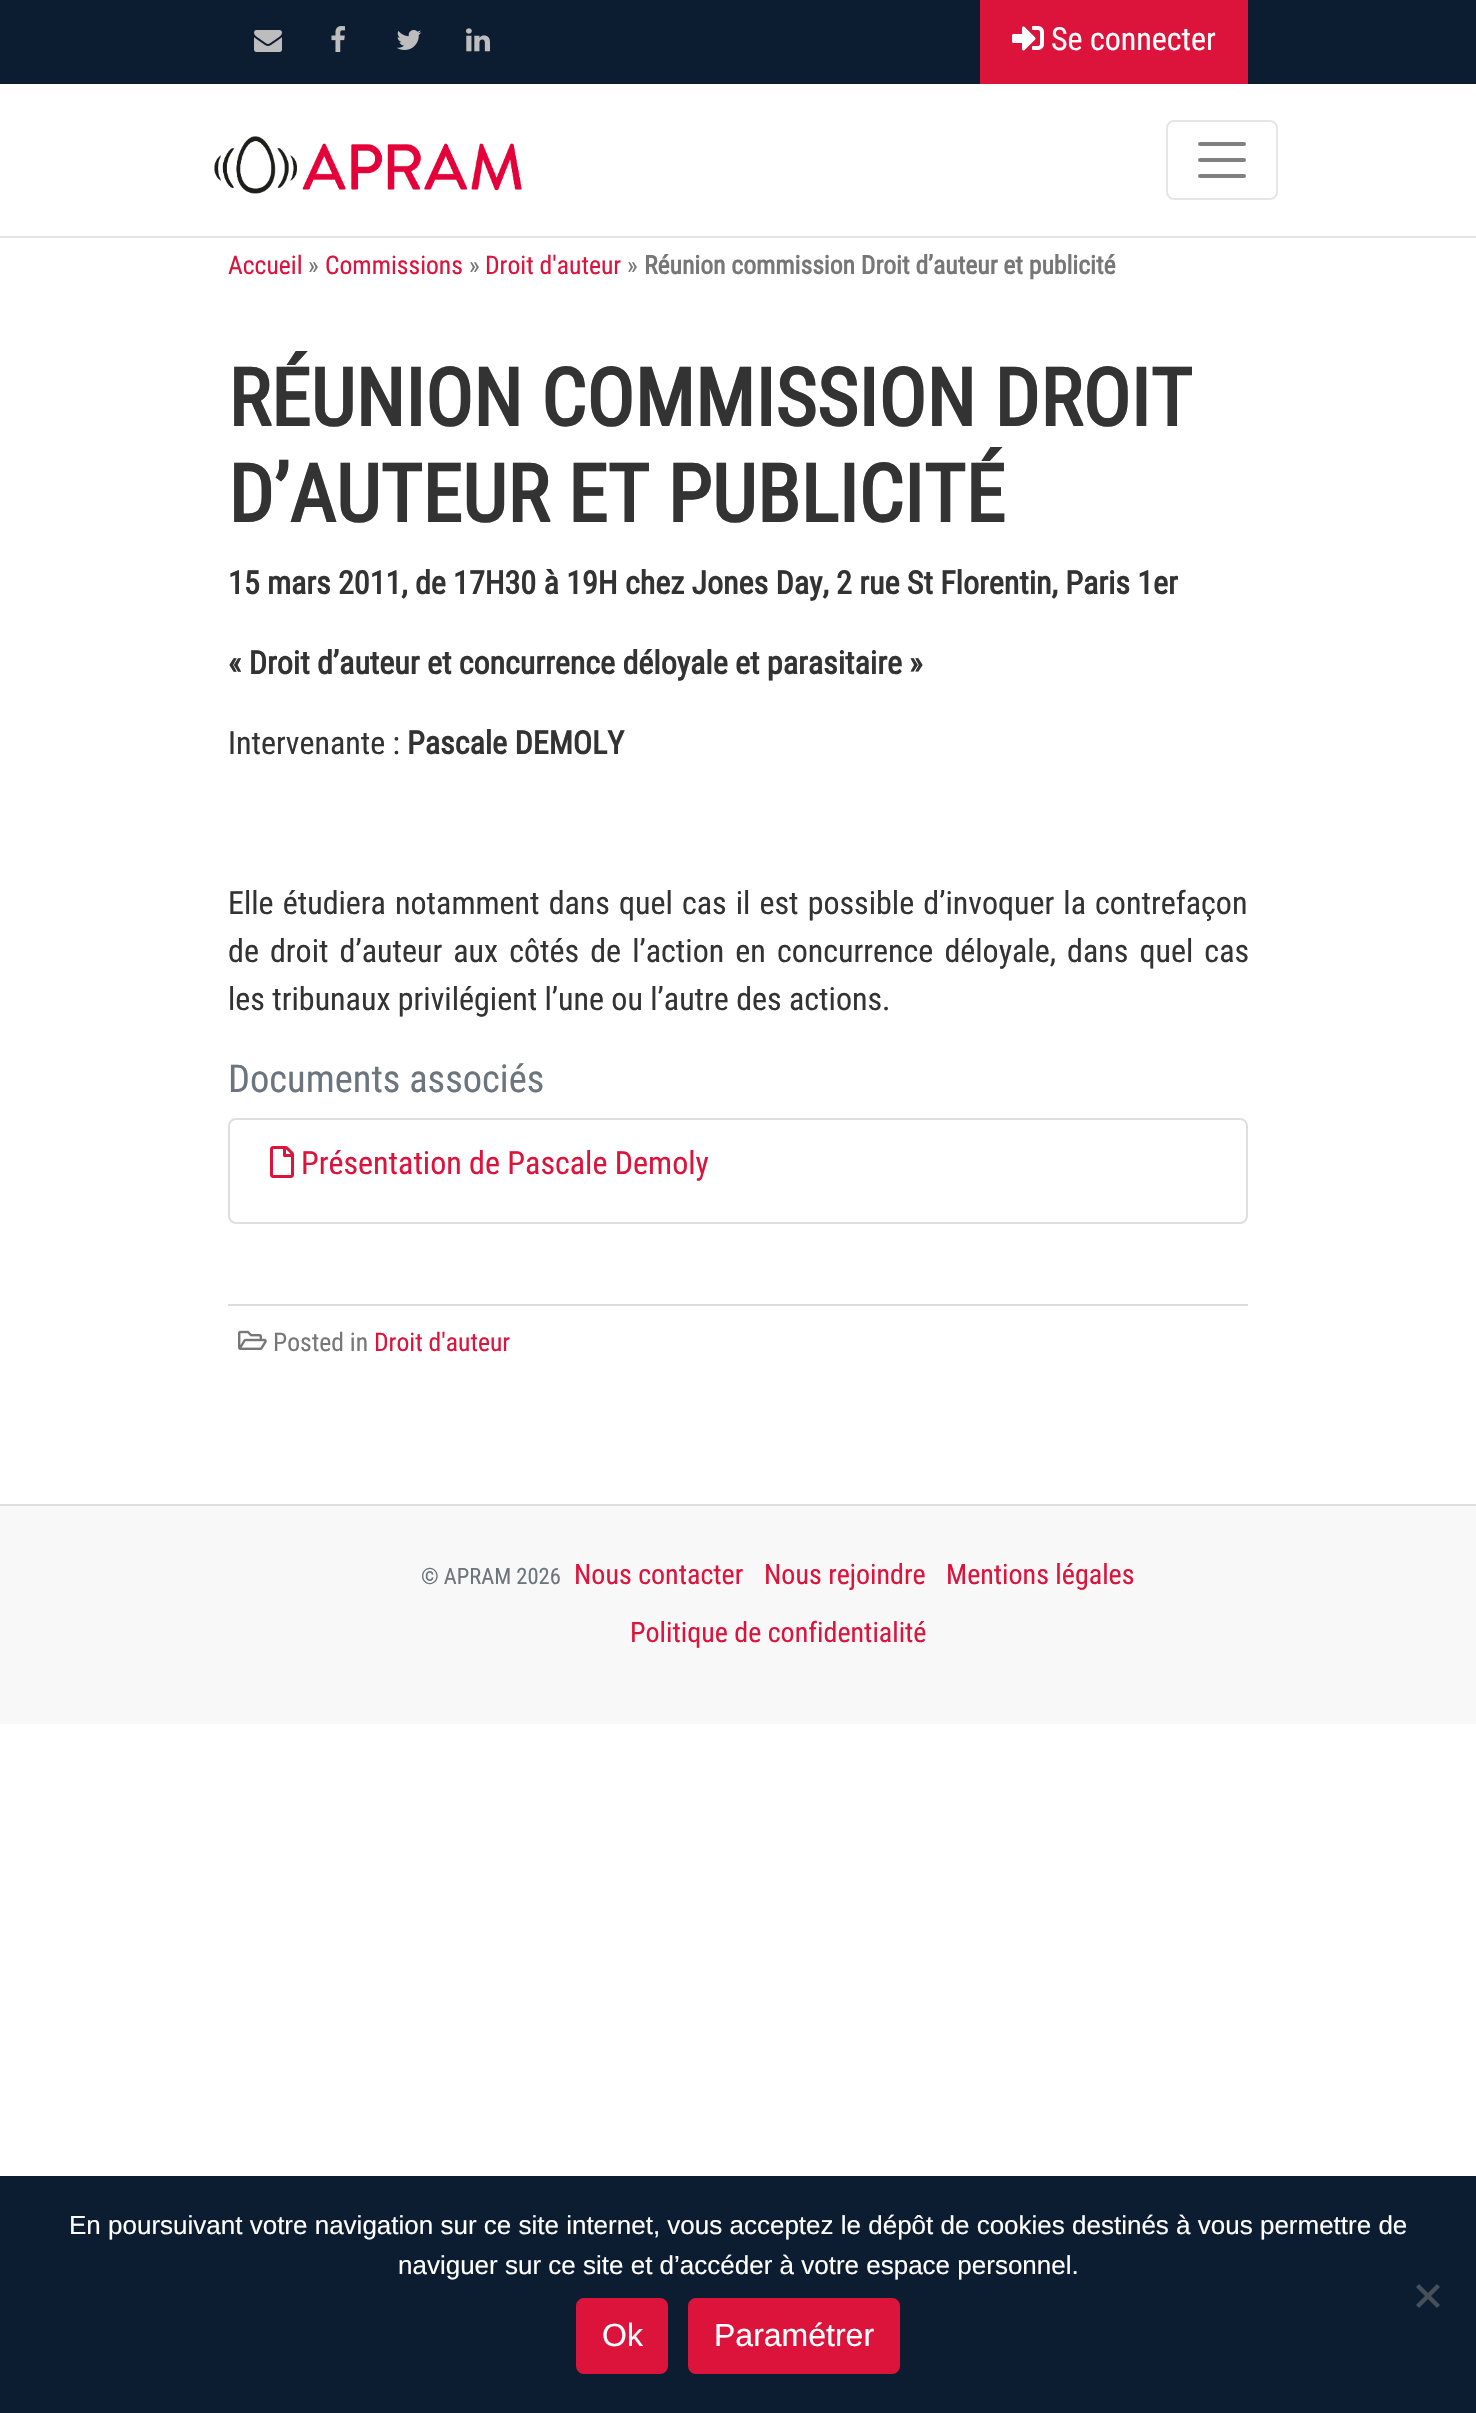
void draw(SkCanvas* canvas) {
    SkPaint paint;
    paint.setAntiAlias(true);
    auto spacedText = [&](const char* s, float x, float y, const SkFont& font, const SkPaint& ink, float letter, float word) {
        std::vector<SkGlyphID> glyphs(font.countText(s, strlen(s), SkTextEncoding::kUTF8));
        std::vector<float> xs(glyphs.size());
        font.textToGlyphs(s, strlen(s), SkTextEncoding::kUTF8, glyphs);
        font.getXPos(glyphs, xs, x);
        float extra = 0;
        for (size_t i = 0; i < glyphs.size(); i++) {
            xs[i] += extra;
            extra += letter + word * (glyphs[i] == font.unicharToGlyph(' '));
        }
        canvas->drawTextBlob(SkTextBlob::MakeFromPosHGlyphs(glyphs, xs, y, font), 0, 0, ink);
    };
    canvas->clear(0xFFFFFFFF);
    paint.setColor(0xFF0D1D31);
    canvas->drawRect(SkRect::MakeXYWH(0, 0, 1476, 84), paint);
    canvas->drawImageRect(SkImages::DeferredFromEncodedData(SkData::MakeFromFileName("img1.png")), SkRect::MakeXYWH(254, 30, 28, 22), SkSamplingOptions());
    canvas->drawImageRect(SkImages::DeferredFromEncodedData(SkData::MakeFromFileName("img2.png")), SkRect::MakeXYWH(331, 26, 14, 26), SkSamplingOptions());
    canvas->drawImageRect(SkImages::DeferredFromEncodedData(SkData::MakeFromFileName("img3.png")), SkRect::MakeXYWH(396, 30, 26, 20), SkSamplingOptions());
    canvas->drawImageRect(SkImages::DeferredFromEncodedData(SkData::MakeFromFileName("img4.png")), SkRect::MakeXYWH(466, 28, 24, 24), SkSamplingOptions());
    paint.setColor(0xFFDC143C);
    canvas->drawRect(SkRect::MakeXYWH(980, 0, 268, 84), paint);
    canvas->drawImageRect(SkImages::DeferredFromEncodedData(SkData::MakeFromFileName("img5.png")), SkRect::MakeXYWH(1012, 26, 32, 25), SkSamplingOptions());
    SkFont font1(fontMgr->matchFamilyStyle("Roboto Condensed", SkFontStyle::Normal()), 32);
    font1.setSubpixel(true);
    paint.setColor(0xFFFFFFFF);
    canvas->drawString("Se connecter", 1051, 50, font1, paint);
    paint.setColor(0xFFE6E6E6);
    canvas->drawRect(SkRect::MakeXYWH(0, 236, 1476, 2), paint);
    canvas->drawImageRect(SkImages::DeferredFromEncodedData(SkData::MakeFromFileName("img6.png")), SkRect::MakeXYWH(214, 136, 308, 58), SkSamplingOptions());
    paint.setStyle(SkPaint::kStroke_Style);
    paint.setStrokeWidth(2);
    canvas->drawRoundRect(SkRect::MakeXYWH(1167, 121, 110, 78), 7, 7, paint);
    paint.setStrokeWidth(4);
    paint.setStrokeCap(SkPaint::kRound_Cap);
    paint.setColor(0xFF808080);
    canvas->drawPath(SkPathBuilder().moveTo(1200, 144).lineTo(1244, 144).moveTo(1200, 160).lineTo(1244, 160).moveTo(1200, 176).lineTo(1244, 176).detach(), paint);
    SkFont font2(fontMgr->matchFamilyStyle("Roboto Condensed", SkFontStyle::Normal()), 25.6f);
    font2.setSubpixel(true);
    paint.setStyle(SkPaint::kFill_Style);
    paint.setColor(0xFFDC143C);
    canvas->drawString("Accueil", 228, 274, font2, paint);
    paint.setColor(0xFF777777);
    canvas->drawString("»", 308, 274, font2, paint);
    paint.setColor(0xFFDC143C);
    canvas->drawString("Commissions", 325, 274, font2, paint);
    paint.setColor(0xFF777777);
    canvas->drawString("»", 469, 274, font2, paint);
    paint.setColor(0xFFDC143C);
    canvas->drawString("Droit d'auteur", 485, 274, font2, paint);
    paint.setColor(0xFF777777);
    canvas->drawString("»", 627, 274, font2, paint);
    SkFont font3(fontMgr->matchFamilyStyle("Roboto Condensed", SkFontStyle::Bold()), 25.6f);
    font3.setSubpixel(true);
    canvas->drawString("Réunion commission Droit d’auteur et publicité", 644, 274, font3, paint);
    SkFont font4(fontMgr->matchFamilyStyle("Roboto Condensed", SkFontStyle::Bold()), 80);
    font4.setSubpixel(true);
    paint.setColor(0xFF333333);
    canvas->drawString("RÉUNION COMMISSION DROIT", 228, 426, font4, paint);
    canvas->drawString("D’AUTEUR ET PUBLICITÉ", 228, 522, font4, paint);
    SkFont font5(fontMgr->matchFamilyStyle("Roboto Condensed", SkFontStyle::Bold()), 32);
    font5.setSubpixel(true);
    canvas->drawString("15 mars 2011, de 17H30 à 19H chez Jones Day, 2 rue St Florentin, Paris 1er", 228, 594, font5, paint);
    canvas->drawString("« Droit d’auteur et concurrence déloyale et parasitaire »", 228, 674, font5, paint);
    canvas->drawString("Intervenante :", 228, 754, font1, paint);
    canvas->drawString("Pascale DEMOLY", 407, 754, font5, paint);
    spacedText("Elle étudiera notamment dans quel cas il est possible d’invoquer la contrefaçon", 228, 914, font1, paint, 0, 1.75f);
    spacedText("de droit d’auteur aux côtés de l’action en concurrence déloyale, dans quel cas", 228, 962, font1, paint, 0, 3.75f);
    canvas->drawString("les tribunaux privilégient l’une ou l’autre des actions.", 228, 1010, font1, paint);
    SkFont font6(fontMgr->matchFamilyStyle("Roboto Condensed", SkFontStyle::Normal()), 38.5f);
    font6.setSubpixel(true);
    paint.setColor(0xFF6C757D);
    canvas->drawString("Documents associés", 228, 1092, font6, paint);
    paint.setStyle(SkPaint::kStroke_Style);
    paint.setStrokeWidth(2);
    paint.setStrokeCap(SkPaint::kButt_Cap);
    paint.setColor(0xFFDFDFDF);
    canvas->drawRoundRect(SkRect::MakeXYWH(229, 1119, 1018, 104), 7, 7, paint);
    canvas->drawImageRect(SkImages::DeferredFromEncodedData(SkData::MakeFromFileName("img7.png")), SkRect::MakeXYWH(270, 1146, 24, 32), SkSamplingOptions());
    paint.setStyle(SkPaint::kFill_Style);
    paint.setColor(0xFFDC143C);
    canvas->drawString("Présentation de Pascale Demoly", 301, 1174, font1, paint);
    paint.setColor(0xFFDDDDDD);
    canvas->drawRect(SkRect::MakeXYWH(228, 1304, 1020, 2), paint);
    canvas->drawImageRect(SkImages::DeferredFromEncodedData(SkData::MakeFromFileName("img8.png")), SkRect::MakeXYWH(238, 1330, 29, 20), SkSamplingOptions());
    paint.setColor(0xFF777777);
    canvas->drawString("Posted in", 273, 1351, font2, paint);
    paint.setColor(0xFFDC143C);
    canvas->drawString("Droit d'auteur", 374, 1351, font2, paint);
    paint.setColor(0xFFF8F8F8);
    canvas->drawRect(SkRect::MakeXYWH(0, 1506, 1476, 218), paint);
    paint.setColor(0xFFDFDFDF);
    canvas->drawRect(SkRect::MakeXYWH(0, 1504, 1476, 2), paint);
    SkFont font7(fontMgr->matchFamilyStyle("Roboto Condensed", SkFontStyle::Normal()), 22.5f);
    font7.setSubpixel(true);
    paint.setColor(0xFF6C757D);
    canvas->drawString("© APRAM 2026", 421, 1584, font7, paint);
    SkFont font8(fontMgr->matchFamilyStyle("Roboto Condensed", SkFontStyle::Normal()), 28);
    font8.setSubpixel(true);
    paint.setColor(0xFFDC143C);
    canvas->drawString("Nous contacter", 574, 1584, font8, paint);
    canvas->drawString("Nous rejoindre", 764, 1584, font8, paint);
    canvas->drawString("Mentions légales", 946, 1584, font8, paint);
    canvas->drawString("Politique de confidentialité", 630, 1642, font8, paint);
    paint.setColor(0xFF0D1D31);
    canvas->drawRect(SkRect::MakeXYWH(0, 2176, 1476, 237), paint);
    SkFont font9(fontMgr->matchFamilyStyle("Liberation Sans", SkFontStyle::Normal()), 26);
    font9.setSubpixel(true);
    paint.setColor(0xFFFFFFFF);
    canvas->drawString("En poursuivant votre navigation sur ce site internet, vous acceptez le dépôt de cookies destinés à vous permettre de", 69, 2234, font9, paint);
    canvas->drawString("naviguer sur ce site et d’accéder à votre espace personnel.", 398, 2274, font9, paint);
    paint.setColor(0xFF474F59);
    canvas->drawPath(SkPathBuilder().moveTo(1437, 2284).lineTo(1440, 2287).lineTo(1419, 2308).lineTo(1416, 2305).close().detach(), paint);
    canvas->drawPath(SkPathBuilder().moveTo(1416, 2287).lineTo(1419, 2284).lineTo(1440, 2305).lineTo(1437, 2308).close().detach(), paint);
    paint.setColor(0xFFDC143C);
    canvas->drawRoundRect(SkRect::MakeXYWH(577, 2299, 90, 74), 7, 7, paint);
    paint.setStyle(SkPaint::kStroke_Style);
    canvas->drawRoundRect(SkRect::MakeXYWH(577, 2299, 90, 74), 7, 7, paint);
    SkFont font10(fontMgr->matchFamilyStyle("Liberation Sans", SkFontStyle::Normal()), 32);
    font10.setSubpixel(true);
    paint.setStyle(SkPaint::kFill_Style);
    paint.setColor(0xFFFFFFFF);
    canvas->drawString("Ok", 602, 2346, font10, paint);
    paint.setColor(0xFFDC143C);
    canvas->drawRoundRect(SkRect::MakeXYWH(689, 2299, 210, 74), 7, 7, paint);
    paint.setStyle(SkPaint::kStroke_Style);
    canvas->drawRoundRect(SkRect::MakeXYWH(689, 2299, 210, 74), 7, 7, paint);
    paint.setStyle(SkPaint::kFill_Style);
    paint.setColor(0xFFFFFFFF);
    canvas->drawString("Paramétrer", 714, 2346, font10, paint);
}
